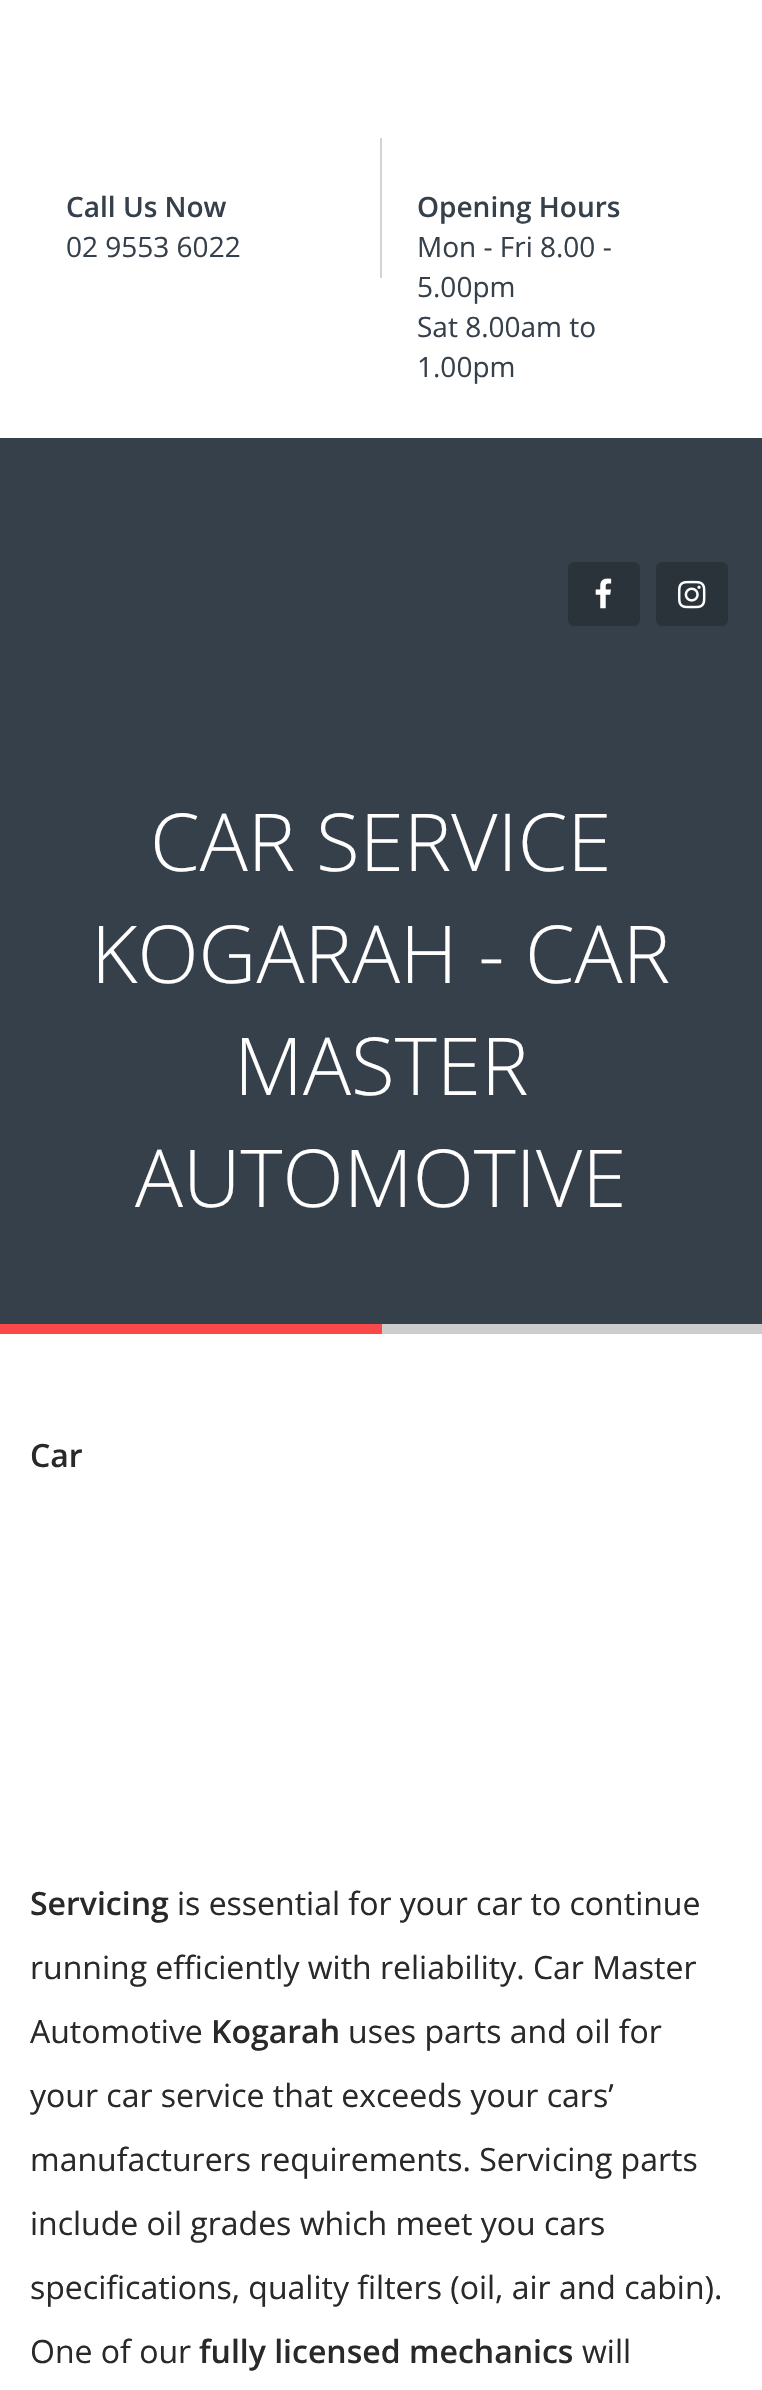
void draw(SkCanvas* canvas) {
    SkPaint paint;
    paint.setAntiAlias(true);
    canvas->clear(0xFFFFFFFF);
    paint.setColor(0xFFD3D3D3);
    canvas->drawRect(SkRect::MakeXYWH(380, 138, 2, 140), paint);
    SkFont font1(fontMgr->matchFamilyStyle("Open Sans", SkFontStyle(600, SkFontStyle::kNormal_Width, SkFontStyle::kUpright_Slant)), 28);
    font1.setSubpixel(true);
    paint.setColor(0xFF36404B);
    canvas->drawString("Call Us Now", 66, 217, font1, paint);
    SkFont font2(fontMgr->matchFamilyStyle("Open Sans", SkFontStyle::Normal()), 28);
    font2.setSubpixel(true);
    canvas->drawString("02 9553 6022", 66, 257, font2, paint);
    canvas->drawString("Opening Hours", 417, 217, font1, paint);
    canvas->drawString("Mon - Fri 8.00 -", 417, 257, font2, paint);
    canvas->drawString("5.00pm", 417, 297, font2, paint);
    canvas->drawString("Sat 8.00am to", 417, 337, font2, paint);
    canvas->drawString("1.00pm", 417, 377, font2, paint);
    canvas->drawRect(SkRect::MakeXYWH(0, 438, 762, 886), paint);
    paint.setColor(0xFF2A323A);
    canvas->drawRoundRect(SkRect::MakeXYWH(568, 562, 72, 64), 6, 6, paint);
    canvas->drawImageRect(SkImages::DeferredFromEncodedData(SkData::MakeFromFileName("img1.png")), SkRect::MakeXYWH(595, 578, 17, 31), SkSamplingOptions());
    canvas->drawRoundRect(SkRect::MakeXYWH(656, 562, 72, 64), 6, 6, paint);
    canvas->drawImageRect(SkImages::DeferredFromEncodedData(SkData::MakeFromFileName("img2.png")), SkRect::MakeXYWH(678, 580, 28, 29), SkSamplingOptions());
    SkFont font3(fontMgr->matchFamilyStyle("Open Sans", SkFontStyle(300, SkFontStyle::kNormal_Width, SkFontStyle::kUpright_Slant)), 80);
    font3.setSubpixel(true);
    paint.setColor(0xFFFFFFFF);
    canvas->drawString("CAR SERVICE", 150, 871, font3, paint);
    canvas->drawString("KOGARAH - CAR", 91, 983, font3, paint);
    canvas->drawString("MASTER", 234, 1095, font3, paint);
    canvas->drawString("AUTOMOTIVE", 135, 1207, font3, paint);
    paint.setColor(0xFFFB4848);
    canvas->drawRect(SkRect::MakeXYWH(0, 1324, 382, 10), paint);
    paint.setColor(0xFFCCCCCC);
    canvas->drawRect(SkRect::MakeXYWH(382, 1324, 380, 10), paint);
    SkFont font4(fontMgr->matchFamilyStyle("Open Sans", SkFontStyle(600, SkFontStyle::kNormal_Width, SkFontStyle::kUpright_Slant)), 32);
    font4.setSubpixel(true);
    paint.setColor(0xFF292929);
    canvas->drawString("Car", 30, 1467, font4, paint);
    canvas->drawString("Servicing", 30, 1915, font4, paint);
    SkFont font5(fontMgr->matchFamilyStyle("Open Sans", SkFontStyle::Normal()), 32);
    font5.setSubpixel(true);
    canvas->drawString("is essential for your car to continue", 177, 1915, font5, paint);
    canvas->drawString("running efficiently with reliability. Car Master", 30, 1979, font5, paint);
    canvas->drawString("Automotive", 30, 2043, font5, paint);
    canvas->drawString("Kogarah", 211, 2043, font4, paint);
    canvas->drawString("uses parts and oil for", 348, 2043, font5, paint);
    canvas->drawString("your car service that exceeds your cars’", 30, 2107, font5, paint);
    canvas->drawString("manufacturers requirements. Servicing parts", 30, 2171, font5, paint);
    canvas->drawString("include oil grades which meet you cars", 30, 2235, font5, paint);
    canvas->drawString("specifications, quality filters (oil, air and cabin).", 30, 2299, font5, paint);
    canvas->drawString("One of our", 30, 2363, font5, paint);
    canvas->drawString("fully licensed mechanics", 199, 2363, font4, paint);
    canvas->drawString("will", 582, 2363, font5, paint);
}
